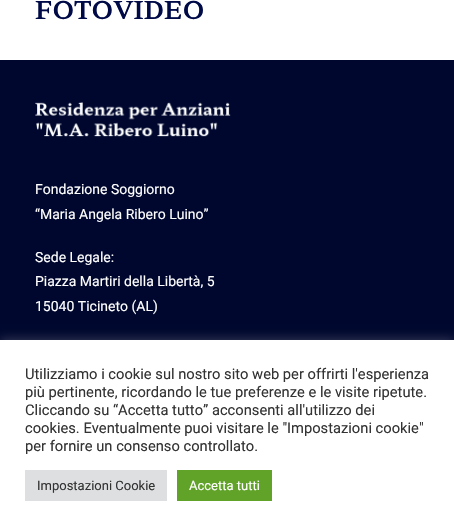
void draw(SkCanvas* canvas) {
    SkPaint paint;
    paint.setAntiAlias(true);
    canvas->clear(0xFFFFFFFF);
    SkFont font1(fontMgr->matchFamilyStyle("Hahmlet", SkFontStyle(600, SkFontStyle::kNormal_Width, SkFontStyle::kUpright_Slant)), 24);
    font1.setSubpixel(true);
    paint.setColor(0xFF000A47);
    canvas->drawString("FOTOVIDEO", 35, 19, font1, paint);
    paint.setColor(0xFF00072E);
    canvas->drawRect(SkRect::MakeXYWH(0, 60, 454, 280), paint);
    canvas->drawImageRect(SkImages::DeferredFromEncodedData(SkData::MakeFromFileName("img1.png")), SkRect::MakeXYWH(35, 102, 196, 35), SkSamplingOptions());
    SkFont font2(fontMgr->matchFamilyStyle("Roboto", SkFontStyle::Normal()), 14);
    font2.setSubpixel(true);
    paint.setColor(0xFFFFFFFF);
    canvas->drawString("Fondazione Soggiorno", 35, 194, font2, paint);
    canvas->drawString("“Maria Angela Ribero Luino”", 35, 219, font2, paint);
    canvas->drawString("Sede Legale:", 35, 262, font2, paint);
    canvas->drawString("Piazza Martiri della Libertà, 5", 35, 286, font2, paint);
    canvas->drawString("15040 Ticineto (AL)", 35, 311, font2, paint);
    paint.setColor(0x4DACABAB);
    paint.setMaskFilter(SkMaskFilter::MakeBlur(kNormal_SkBlurStyle, 5));
    canvas->drawRect(SkRect::MakeXYWH(0, 339, 454, 191), paint);
    paint.setMaskFilter(nullptr);
    paint.setColor(0xFFFFFFFF);
    canvas->drawRect(SkRect::MakeXYWH(0, 340, 454, 191), paint);
    SkFont font3(fontMgr->matchFamilyStyle("Roboto", SkFontStyle::Normal()), 14.7f);
    font3.setSubpixel(true);
    paint.setColor(0xFF333333);
    canvas->drawString("Utilizziamo i cookie sul nostro sito web per offrirti l'esperienza", 25, 379, font3, paint);
    canvas->drawString("più pertinente, ricordando le tue preferenze e le visite ripetute.", 25, 397, font3, paint);
    canvas->drawString("Cliccando su “Accetta tutto” acconsenti all'utilizzo dei", 25, 415, font3, paint);
    canvas->drawString("cookies. Eventualmente puoi visitare le \"Impostazioni cookie\"", 25, 433, font3, paint);
    canvas->drawString("per fornire un consenso controllato.", 25, 451, font3, paint);
    paint.setColor(0xFFDEDFE0);
    canvas->drawRect(SkRect::MakeXYWH(25, 470, 142, 31), paint);
    SkFont font4(fontMgr->matchFamilyStyle("Roboto", SkFontStyle::Normal()), 13);
    font4.setSubpixel(true);
    paint.setColor(0xFF333333);
    canvas->drawString("Impostazioni Cookie", 37, 490, font4, paint);
    paint.setColor(0xFF61A229);
    canvas->drawRect(SkRect::MakeXYWH(177, 470, 95, 31), paint);
    paint.setColor(0xFFFFFFFF);
    canvas->drawString("Accetta tutti", 189, 490, font4, paint);
}
